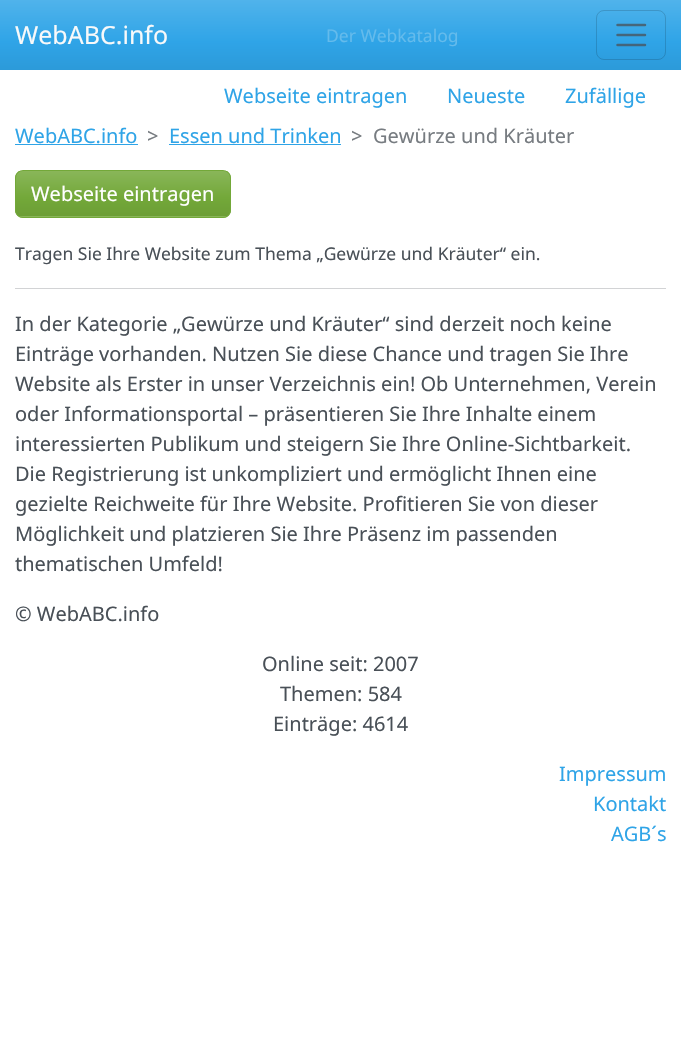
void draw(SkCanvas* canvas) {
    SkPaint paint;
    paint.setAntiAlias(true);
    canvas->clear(0xFFFFFFFF);
    {
        const SkColor colors[] = {0xFF50B3EB, 0xFF2FA4E7, 0xFF2C9AD9};
        const float stops[] = {0, 0.6f, 1};
        const SkPoint ends[] = {{341, 0}, {341, 70}};
        paint.setShader(SkGradientShader::MakeLinear(ends, colors, stops, 3, SkTileMode::kClamp));
        paint.setAlpha(255);
    }
    canvas->drawRect(SkRect::MakeXYWH(0, 0, 681, 70), paint);
    SkFont font1(fontMgr->matchFamilyStyle("Noto Sans", SkFontStyle::Normal()), 25);
    font1.setSubpixel(true);
    paint.setShader(nullptr);
    paint.setColor(0xFFF8F9FA);
    canvas->drawString("WebABC.info", 15, 44, font1, paint);
    SkFont font2(fontMgr->matchFamilyStyle("Noto Sans", SkFontStyle::Normal()), 17.5f);
    font2.setSubpixel(true);
    paint.setColor(0xFF64BBEC);
    canvas->drawString("Der Webkatalog", 326, 42, font2, paint);
    paint.setStyle(SkPaint::kStroke_Style);
    paint.setStrokeWidth(1);
    paint.setColor(0x26000000);
    canvas->drawRoundRect(SkRect::MakeXYWH(596.5f, 10.5f, 69, 49), 7.5f, 7.5f, paint);
    paint.setStrokeWidth(2.5f);
    paint.setStrokeCap(SkPaint::kRound_Cap);
    paint.setColor(0xBF495057);
    canvas->drawPath(SkPathBuilder().moveTo(617.5f, 25).lineTo(645, 25).moveTo(617.5f, 35).lineTo(645, 35).moveTo(617.5f, 45).lineTo(645, 45).detach(), paint);
    SkFont font3(fontMgr->matchFamilyStyle("Noto Sans", SkFontStyle::Normal()), 20);
    font3.setSubpixel(true);
    paint.setStyle(SkPaint::kFill_Style);
    paint.setColor(0xFF2FA4E7);
    canvas->drawString("Webseite eintragen", 224, 103, font3, paint);
    canvas->drawString("Neueste", 447, 103, font3, paint);
    canvas->drawString("Zufällige", 565, 103, font3, paint);
    canvas->drawString("WebABC.info", 15, 143, font3, paint);
    canvas->drawRect(SkRect::MakeXYWH(15, 144, 123, 1), paint);
    paint.setColor(0xFF777C81);
    canvas->drawString(">", 147, 143, font3, paint);
    paint.setColor(0xFF2FA4E7);
    canvas->drawString("Essen und Trinken", 169, 143, font3, paint);
    canvas->drawRect(SkRect::MakeXYWH(169, 144, 172, 1), paint);
    paint.setColor(0xFF777C81);
    canvas->drawString(">", 351, 143, font3, paint);
    canvas->drawString("Gewürze und Kräuter", 373, 143, font3, paint);
    canvas->save();
    canvas->clipPath(SkPathBuilder().moveTo(23, 170).lineTo(223, 170).cubicTo(227.5f, 170, 231, 173.5f, 231, 178).lineTo(231, 210).cubicTo(231, 214.5f, 227.5f, 218, 223, 218).lineTo(23, 218).cubicTo(18.5f, 218, 15, 214.5f, 15, 210).lineTo(15, 178).cubicTo(15, 173.5f, 18.5f, 170, 23, 170).close().detach(), true);
    {
        const SkColor colors[] = {0xFF89B659, 0xFF73A839, 0xFF6C9E36};
        const float stops[] = {0, 0.6f, 1};
        const SkPoint ends[] = {{123, 171}, {123, 216}};
        paint.setShader(SkGradientShader::MakeLinear(ends, colors, stops, 3, SkTileMode::kClamp));
        paint.setAlpha(255);
    }
    canvas->drawRect(SkRect::MakeXYWH(15, 171, 216, 45), paint);
    {
        const SkColor colors[] = {0xFF89B659, 0xFF73A839, 0xFF6C9E36};
        const float stops[] = {0, 0.6f, 1};
        const SkPoint ends[] = {{123, 216}, {123, 261}};
        paint.setShader(SkGradientShader::MakeLinear(ends, colors, stops, 3, SkTileMode::kClamp));
        paint.setAlpha(255);
    }
    canvas->drawRect(SkRect::MakeXYWH(15, 216, 216, 2), paint);
    canvas->restore();
    paint.setStyle(SkPaint::kStroke_Style);
    paint.setStrokeWidth(1);
    paint.setStrokeCap(SkPaint::kButt_Cap);
    paint.setShader(nullptr);
    paint.setColor(0xFF73A839);
    canvas->drawRoundRect(SkRect::MakeXYWH(15.5f, 170.5f, 215, 47), 7.5f, 7.5f, paint);
    paint.setStyle(SkPaint::kFill_Style);
    paint.setColor(0xFFFFFFFF);
    canvas->drawString("Webseite eintragen", 31, 201, font3, paint);
    paint.setColor(0xFF495057);
    canvas->drawString("Tragen Sie Ihre Website zum Thema „Gewürze und Kräuter“ ein.", 15, 260, font2, paint);
    paint.setColor(0xFFD2D3D5);
    canvas->drawRect(SkRect::MakeXYWH(15, 288, 651, 1), paint);
    paint.setColor(0xFF495057);
    canvas->drawString("In der Kategorie „Gewürze und Kräuter“ sind derzeit noch keine", 15, 331, font3, paint);
    canvas->drawString("Einträge vorhanden. Nutzen Sie diese Chance und tragen Sie Ihre", 15, 361, font3, paint);
    canvas->drawString("Website als Erster in unser Verzeichnis ein! Ob Unternehmen, Verein", 15, 391, font3, paint);
    canvas->drawString("oder Informationsportal – präsentieren Sie Ihre Inhalte einem", 15, 421, font3, paint);
    canvas->drawString("interessierten Publikum und steigern Sie Ihre Online-Sichtbarkeit.", 15, 451, font3, paint);
    canvas->drawString("Die Registrierung ist unkompliziert und ermöglicht Ihnen eine", 15, 481, font3, paint);
    canvas->drawString("gezielte Reichweite für Ihre Website. Profitieren Sie von dieser", 15, 511, font3, paint);
    canvas->drawString("Möglichkeit und platzieren Sie Ihre Präsenz im passenden", 15, 541, font3, paint);
    canvas->drawString("thematischen Umfeld!", 15, 571, font3, paint);
    canvas->drawString("© WebABC.info", 15, 621, font3, paint);
    canvas->drawString("Online seit: 2007", 262, 671, font3, paint);
    canvas->drawString("Themen: 584", 280, 701, font3, paint);
    canvas->drawString("Einträge: 4614", 273, 731, font3, paint);
    paint.setColor(0xFF2FA4E7);
    canvas->drawString("Impressum", 559, 781, font3, paint);
    canvas->drawString("Kontakt", 593, 811, font3, paint);
    canvas->drawString("AGB´s", 611, 841, font3, paint);
}
